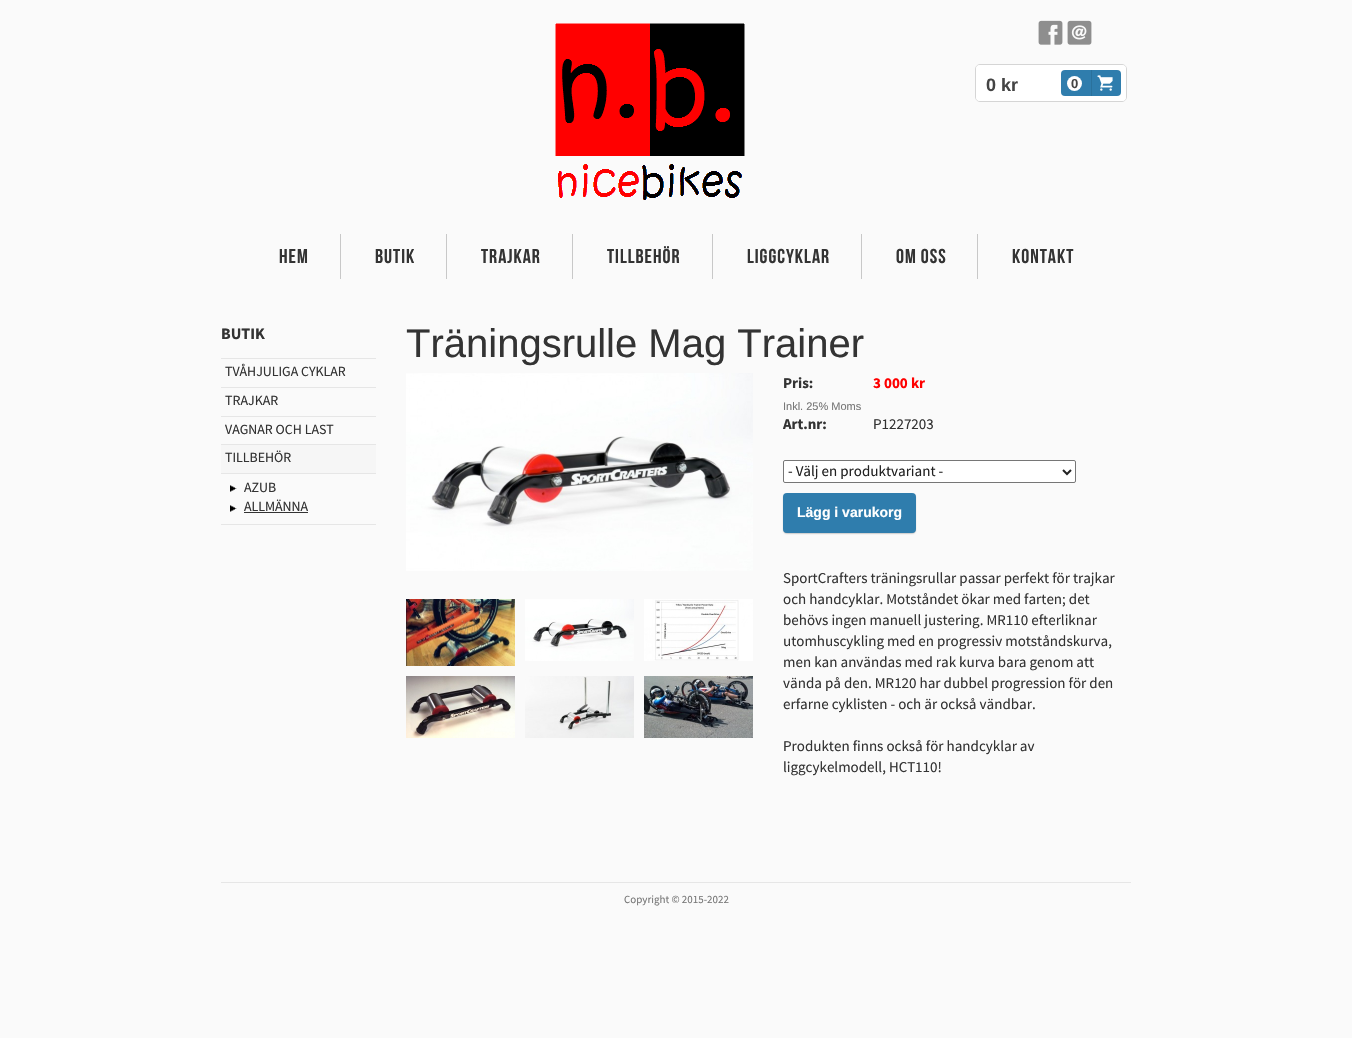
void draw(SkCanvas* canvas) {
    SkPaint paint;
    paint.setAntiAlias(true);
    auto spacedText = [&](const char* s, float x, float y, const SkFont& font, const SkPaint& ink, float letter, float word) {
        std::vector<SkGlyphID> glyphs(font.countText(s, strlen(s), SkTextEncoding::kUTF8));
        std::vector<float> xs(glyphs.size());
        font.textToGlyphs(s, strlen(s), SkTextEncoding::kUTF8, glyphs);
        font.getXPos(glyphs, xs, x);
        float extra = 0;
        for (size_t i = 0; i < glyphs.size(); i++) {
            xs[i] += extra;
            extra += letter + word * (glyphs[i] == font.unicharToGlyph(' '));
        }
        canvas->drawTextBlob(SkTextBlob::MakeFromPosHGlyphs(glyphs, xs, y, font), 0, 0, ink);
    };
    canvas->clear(0xFFFAFAFA);
    canvas->drawImageRect(SkImages::DeferredFromEncodedData(SkData::MakeFromFileName("img1.png")), SkRect::MakeXYWH(555, 23, 190, 177), SkSamplingOptions());
    canvas->drawImageRect(SkImages::DeferredFromEncodedData(SkData::MakeFromFileName("img2.png")), SkRect::MakeXYWH(1038, 20, 25, 25), SkSamplingOptions());
    canvas->drawImageRect(SkImages::DeferredFromEncodedData(SkData::MakeFromFileName("img3.png")), SkRect::MakeXYWH(1067, 20, 25, 25), SkSamplingOptions());
    paint.setStyle(SkPaint::kStroke_Style);
    paint.setStrokeWidth(1);
    paint.setColor(0xFFD5D5D5);
    canvas->drawRoundRect(SkRect::MakeXYWH(975.5f, 64.5f, 151, 37), 4.5f, 4.5f, paint);
    paint.setStyle(SkPaint::kFill_Style);
    paint.setColor(0xFFFFFFFF);
    canvas->drawRoundRect(SkRect::MakeXYWH(976, 65, 150, 36), 4, 4, paint);
    SkFont font1(fontMgr->matchFamilyStyle("Liberation Sans", SkFontStyle::Bold()), 18);
    font1.setSubpixel(true);
    paint.setColor(0xFF444444);
    canvas->drawString("0 kr", 986, 91, font1, paint);
    paint.setColor(0xFF2F7DAD);
    canvas->drawRoundRect(SkRect::MakeXYWH(1061, 70, 60, 26), 4, 4, paint);
    paint.setColor(0xFF2A719C);
    canvas->drawRect(SkRect::MakeXYWH(1091, 70, 1, 26), paint);
    paint.setColor(0xFFFFFFFF);
    canvas->drawCircle(1074.5f, 83.5f, 7.5f, paint);
    SkFont font2(fontMgr->matchFamilyStyle("Liberation Sans", SkFontStyle::Bold()), 13);
    font2.setSubpixel(true);
    paint.setColor(0xFF444444);
    canvas->drawString("0", 1071, 88, font2, paint);
    canvas->drawImageRect(SkImages::DeferredFromEncodedData(SkData::MakeFromFileName("img4.png")), SkRect::MakeXYWH(1097, 75, 16, 16), SkSamplingOptions());
    SkFont font3(fontMgr->matchFamilyStyle("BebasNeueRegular", SkFontStyle::Normal()), 20);
    font3.setSubpixel(true);
    paint.setColor(0xFF333333);
    spacedText("HEM", 279, 263, font3, paint, 1, 0);
    paint.setColor(0xFFC8C8C8);
    canvas->drawRect(SkRect::MakeXYWH(340, 234, 1, 45), paint);
    paint.setColor(0xFF333333);
    spacedText("BUTIK", 375, 263, font3, paint, 1, 0);
    paint.setColor(0xFFC8C8C8);
    canvas->drawRect(SkRect::MakeXYWH(446, 234, 1, 45), paint);
    paint.setColor(0xFF333333);
    spacedText("TRAJKAR", 481, 263, font3, paint, 1, 0);
    paint.setColor(0xFFC8C8C8);
    canvas->drawRect(SkRect::MakeXYWH(572, 234, 1, 45), paint);
    paint.setColor(0xFF333333);
    spacedText("TILLBEHÖR", 607, 263, font3, paint, 1, 0);
    paint.setColor(0xFFC8C8C8);
    canvas->drawRect(SkRect::MakeXYWH(712, 234, 1, 45), paint);
    paint.setColor(0xFF333333);
    spacedText("LIGGCYKLAR", 747, 263, font3, paint, 1, 0);
    paint.setColor(0xFFC8C8C8);
    canvas->drawRect(SkRect::MakeXYWH(861, 234, 1, 45), paint);
    paint.setColor(0xFF333333);
    spacedText("OM OSS", 896, 263, font3, paint, 1, 0);
    paint.setColor(0xFFC8C8C8);
    canvas->drawRect(SkRect::MakeXYWH(977, 234, 1, 45), paint);
    paint.setColor(0xFF333333);
    spacedText("KONTAKT", 1012, 263, font3, paint, 1, 0);
    SkFont font4(fontMgr->matchFamilyStyle("Source Sans Pro", SkFontStyle::Bold()), 16);
    font4.setSubpixel(true);
    canvas->drawString("BUTIK", 221, 339, font4, paint);
    paint.setColor(0xFFE6E6E6);
    canvas->drawRect(SkRect::MakeXYWH(221, 358, 155, 1), paint);
    canvas->drawRect(SkRect::MakeXYWH(221, 387, 155, 1), paint);
    SkFont font5(fontMgr->matchFamilyStyle("Source Sans Pro", SkFontStyle::Normal()), 14);
    font5.setSubpixel(true);
    paint.setColor(0xFF333333);
    canvas->drawString("TVÅHJULIGA CYKLAR", 225, 376, font5, paint);
    paint.setColor(0xFFE6E6E6);
    canvas->drawRect(SkRect::MakeXYWH(221, 416, 155, 1), paint);
    paint.setColor(0xFF333333);
    canvas->drawString("TRAJKAR", 225, 405, font5, paint);
    paint.setColor(0xFFE6E6E6);
    canvas->drawRect(SkRect::MakeXYWH(221, 444, 155, 1), paint);
    paint.setColor(0xFF333333);
    canvas->drawString("VAGNAR OCH LAST", 225, 434, font5, paint);
    paint.setColor(0xFFE6E6E6);
    canvas->drawRect(SkRect::MakeXYWH(221, 524, 155, 1), paint);
    paint.setColor(0xFFF6F6F6);
    canvas->drawRect(SkRect::MakeXYWH(221, 445, 155, 28), paint);
    paint.setColor(0xFF333333);
    canvas->drawString("TILLBEHÖR", 225, 462, font5, paint);
    paint.setColor(0xFFE6E6E6);
    canvas->drawRect(SkRect::MakeXYWH(221, 473, 155, 1), paint);
    canvas->drawImageRect(SkImages::DeferredFromEncodedData(SkData::MakeFromFileName("img5.png")), SkRect::MakeXYWH(230, 485, 7, 7), SkSamplingOptions());
    paint.setColor(0xFF333333);
    canvas->drawString("AZUB", 244, 492, font5, paint);
    canvas->drawImageRect(SkImages::DeferredFromEncodedData(SkData::MakeFromFileName("img5.png")), SkRect::MakeXYWH(230, 505, 7, 7), SkSamplingOptions());
    canvas->drawString("ALLMÄNNA", 244, 511, font5, paint);
    canvas->drawRect(SkRect::MakeXYWH(244, 512, 64, 1), paint);
    SkFont font6(fontMgr->matchFamilyStyle("Liberation Sans", SkFontStyle::Normal()), 40);
    font6.setSubpixel(true);
    canvas->drawString("Träningsrulle Mag Trainer", 406, 357, font6, paint);
    canvas->drawImageRect(SkImages::DeferredFromEncodedData(SkData::MakeFromFileName("img6.png")), SkRect::MakeXYWH(406, 373, 347, 198), SkSamplingOptions());
    canvas->drawImageRect(SkImages::DeferredFromEncodedData(SkData::MakeFromFileName("img7.png")), SkRect::MakeXYWH(406, 599, 109, 67), SkSamplingOptions());
    canvas->drawImageRect(SkImages::DeferredFromEncodedData(SkData::MakeFromFileName("img8.png")), SkRect::MakeXYWH(525, 599, 109, 62), SkSamplingOptions());
    canvas->drawImageRect(SkImages::DeferredFromEncodedData(SkData::MakeFromFileName("img9.png")), SkRect::MakeXYWH(644, 599, 109, 62), SkSamplingOptions());
    canvas->drawImageRect(SkImages::DeferredFromEncodedData(SkData::MakeFromFileName("img10.png")), SkRect::MakeXYWH(406, 676, 109, 62), SkSamplingOptions());
    canvas->drawImageRect(SkImages::DeferredFromEncodedData(SkData::MakeFromFileName("img11.png")), SkRect::MakeXYWH(525, 676, 109, 62), SkSamplingOptions());
    canvas->drawImageRect(SkImages::DeferredFromEncodedData(SkData::MakeFromFileName("img12.png")), SkRect::MakeXYWH(644, 676, 109, 62), SkSamplingOptions());
    SkFont font7(fontMgr->matchFamilyStyle("Source Sans Pro", SkFontStyle::Bold()), 15);
    font7.setSubpixel(true);
    canvas->drawString("Pris:", 783, 388, font7, paint);
    paint.setColor(0xFFFF0000);
    canvas->drawString("3 000 kr", 873, 388, font7, paint);
    SkFont font8(fontMgr->matchFamilyStyle("Liberation Sans", SkFontStyle::Normal()), 11);
    font8.setSubpixel(true);
    paint.setColor(0xFF777777);
    canvas->drawString("Inkl. 25% Moms", 783, 410, font8, paint);
    paint.setColor(0xFF333333);
    canvas->drawString("Art.nr:", 783, 429, font7, paint);
    SkFont font9(fontMgr->matchFamilyStyle("Source Sans Pro", SkFontStyle::Normal()), 15);
    font9.setSubpixel(true);
    canvas->drawString("P1227203", 873, 429, font9, paint);
    paint.setColor(0xFFFFFFFF);
    canvas->drawRoundRect(SkRect::MakeXYWH(783.5f, 460.5f, 292, 22), 1.5f, 1.5f, paint);
    paint.setStyle(SkPaint::kStroke_Style);
    paint.setColor(0xFF767676);
    canvas->drawRoundRect(SkRect::MakeXYWH(783.5f, 460.5f, 292, 22), 1.5f, 1.5f, paint);
    paint.setStrokeWidth(2);
    paint.setColor(0xFF222222);
    canvas->drawPath(SkPathBuilder().moveTo(1063, 470).lineTo(1067, 474).lineTo(1071, 470).detach(), paint);
    paint.setStyle(SkPaint::kFill_Style);
    canvas->drawString("- Välj en produktvariant -", 788, 476, font9, paint);
    paint.setColor(0x99000000);
    paint.setMaskFilter(SkMaskFilter::MakeBlur(kNormal_SkBlurStyle, 1));
    canvas->drawRoundRect(SkRect::MakeXYWH(784, 495, 131, 38), 3, 3, paint);
    paint.setMaskFilter(nullptr);
    paint.setColor(0xFF2F7DAD);
    canvas->drawRoundRect(SkRect::MakeXYWH(783, 493, 133, 40), 4, 4, paint);
    SkFont font10(fontMgr->matchFamilyStyle("Liberation Sans", SkFontStyle::Bold()), 14);
    font10.setSubpixel(true);
    paint.setColor(0xFFFFFFFF);
    canvas->drawString("Lägg i varukorg", 797, 517, font10, paint);
    paint.setColor(0xFF333333);
    canvas->drawString("SportCrafters träningsrullar passar perfekt för trajkar", 783, 583, font9, paint);
    canvas->drawString("och handcyklar. Motståndet ökar med farten; det", 783, 604, font9, paint);
    canvas->drawString("behövs ingen manuell justering. MR110 efterliknar", 783, 625, font9, paint);
    canvas->drawString("utomhuscykling med en progressiv motståndskurva,", 783, 646, font9, paint);
    canvas->drawString("men kan användas med rak kurva bara genom att", 783, 667, font9, paint);
    canvas->drawString("vända på den. MR120 har dubbel progression för den", 783, 688, font9, paint);
    canvas->drawString("erfarne cyklisten - och är också vändbar.", 783, 709, font9, paint);
    canvas->drawString("Produkten finns också för handcyklar av", 783, 751, font9, paint);
    canvas->drawString("liggcykelmodell, HCT110!", 783, 772, font9, paint);
    paint.setColor(0xFFE6E6E6);
    canvas->drawRect(SkRect::MakeXYWH(221, 882, 910, 1), paint);
    SkFont font11(fontMgr->matchFamilyStyle("Source Sans Pro", SkFontStyle::Normal()), 11);
    font11.setSubpixel(true);
    paint.setColor(0xFF777777);
    canvas->drawString("Copyright © 2015-2022", 624, 903, font11, paint);
}
